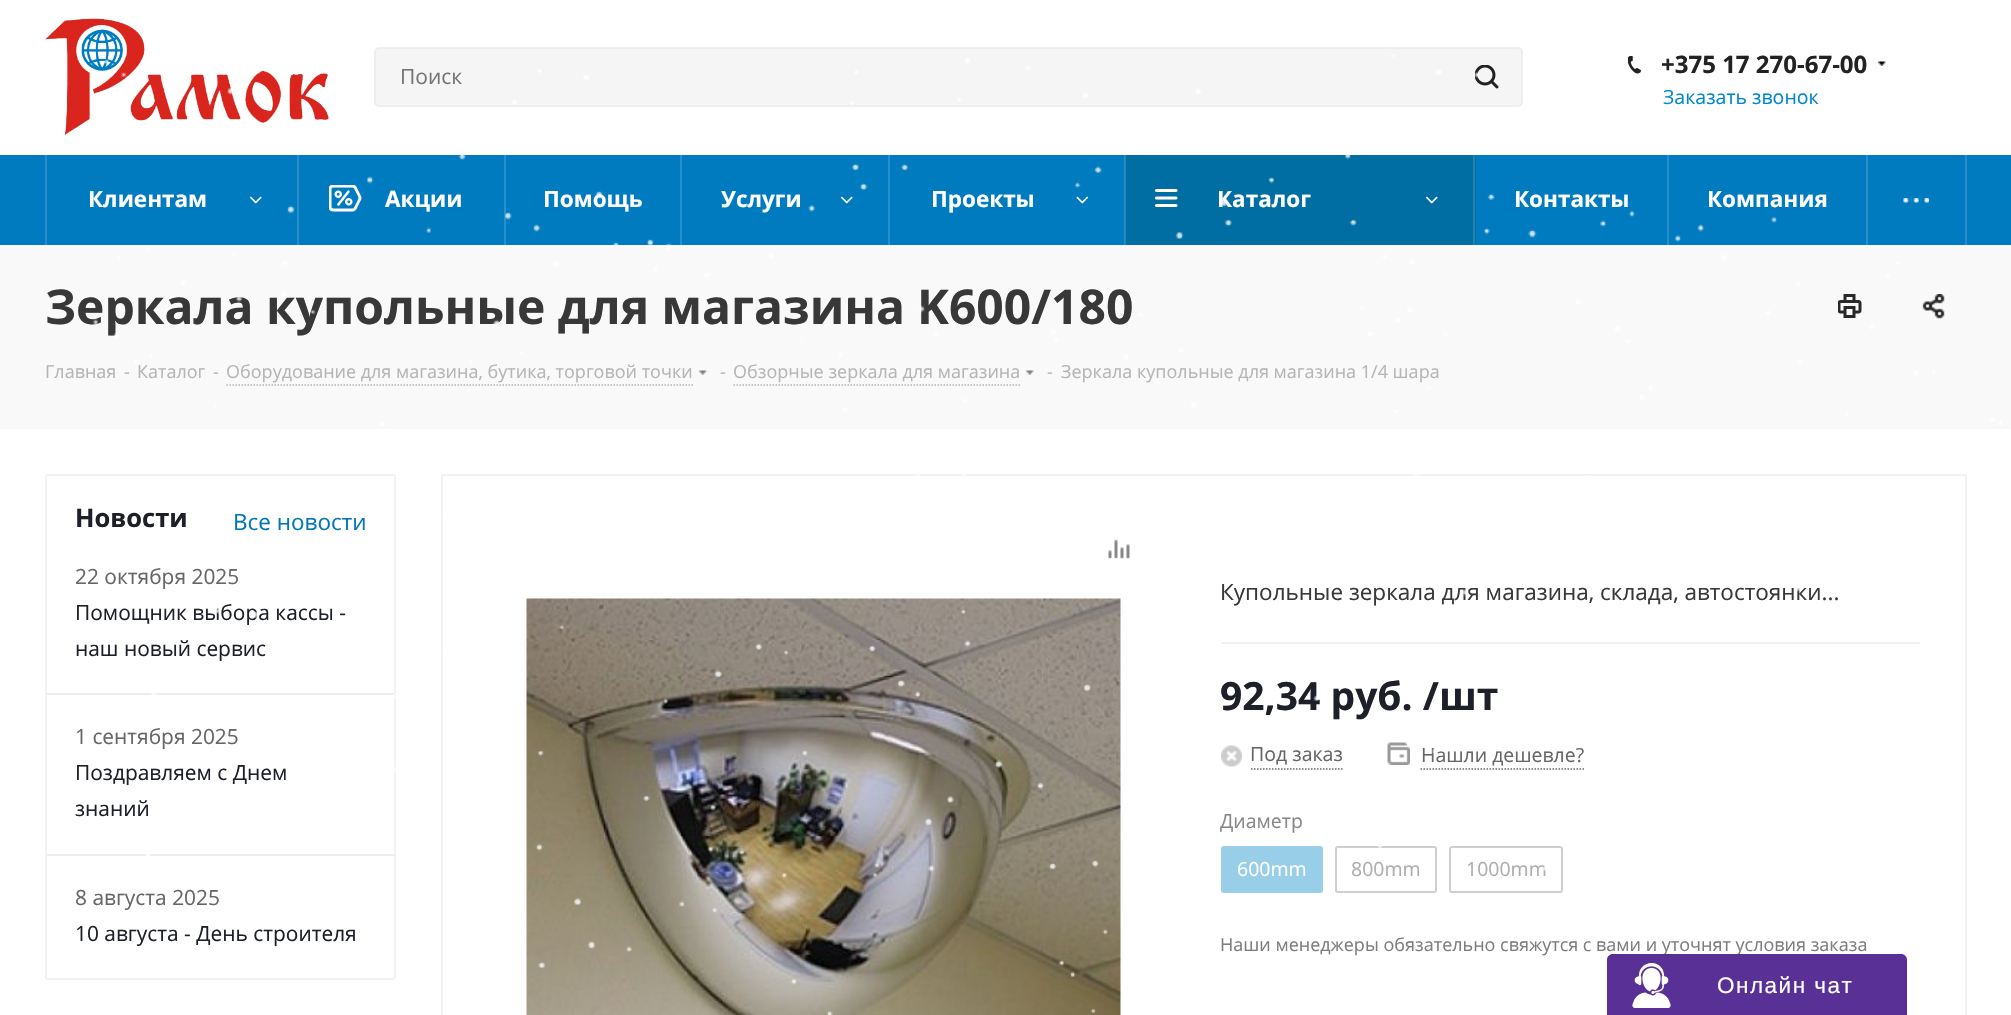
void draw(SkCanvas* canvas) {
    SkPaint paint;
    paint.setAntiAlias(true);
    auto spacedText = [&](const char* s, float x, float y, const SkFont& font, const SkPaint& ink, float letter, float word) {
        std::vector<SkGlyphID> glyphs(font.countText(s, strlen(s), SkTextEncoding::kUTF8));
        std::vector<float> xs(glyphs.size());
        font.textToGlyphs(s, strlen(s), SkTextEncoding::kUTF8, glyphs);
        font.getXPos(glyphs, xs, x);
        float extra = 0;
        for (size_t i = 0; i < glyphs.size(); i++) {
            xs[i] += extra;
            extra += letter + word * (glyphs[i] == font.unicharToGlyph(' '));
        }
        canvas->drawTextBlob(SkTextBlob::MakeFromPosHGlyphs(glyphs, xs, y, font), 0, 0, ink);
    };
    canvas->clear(0xFFFFFFFF);
    canvas->drawImageRect(SkImages::DeferredFromEncodedData(SkData::MakeFromFileName("img2.png")), SkRect::MakeXYWH(45, 18, 284, 117), SkSamplingOptions());
    paint.setColor(0xFFF5F5F5);
    canvas->drawRoundRect(SkRect::MakeXYWH(375, 48, 1147, 58), 4, 4, paint);
    paint.setStyle(SkPaint::kStroke_Style);
    paint.setStrokeWidth(2);
    paint.setColor(0xFFEEEEEE);
    canvas->drawRoundRect(SkRect::MakeXYWH(375, 48, 1147, 58), 4, 4, paint);
    SkFont font1(fontMgr->matchFamilyStyle("Open Sans", SkFontStyle::Normal()), 21);
    font1.setSubpixel(true);
    paint.setStyle(SkPaint::kFill_Style);
    paint.setColor(0xFF757575);
    canvas->drawString("Поиск", 400, 84, font1, paint);
    canvas->drawImageRect(SkImages::DeferredFromEncodedData(SkData::MakeFromFileName("img3.png")), SkRect::MakeXYWH(1475, 65, 24, 24), SkSamplingOptions());
    canvas->drawImageRect(SkImages::DeferredFromEncodedData(SkData::MakeFromFileName("img4.png")), SkRect::MakeXYWH(1628, 56, 13, 18), SkSamplingOptions());
    SkFont font2(fontMgr->matchFamilyStyle("Open Sans", SkFontStyle::Bold()), 24);
    font2.setSubpixel(true);
    paint.setColor(0xFF222222);
    canvas->drawString("+375 17 270-67-00", 1661, 73, font2, paint);
    canvas->drawImageRect(SkImages::DeferredFromEncodedData(SkData::MakeFromFileName("img5.png")), SkRect::MakeXYWH(1878, 61, 8, 5), SkSamplingOptions());
    SkFont font3(fontMgr->matchFamilyStyle("Open Sans", SkFontStyle::Normal()), 19.5f);
    font3.setSubpixel(true);
    paint.setColor(0xFF0088CC);
    canvas->drawString("Заказать звонок", 1663, 104, font3, paint);
    paint.setColor(0xFF017BC0);
    canvas->drawRect(SkRect::MakeXYWH(0, 155, 2011, 90), paint);
    paint.setColor(0xFF278FC9);
    canvas->drawRect(SkRect::MakeXYWH(1124, 155, 1, 90), paint);
    canvas->drawRect(SkRect::MakeXYWH(297, 155, 2, 90), paint);
    SkFont font4(fontMgr->matchFamilyStyle("Open Sans", SkFontStyle::Bold()), 22.5f);
    font4.setSubpixel(true);
    paint.setColor(0xFFFFFFFF);
    canvas->drawString("Клиентам", 88, 207, font4, paint);
    canvas->drawImageRect(SkImages::DeferredFromEncodedData(SkData::MakeFromFileName("img6.png")), SkRect::MakeXYWH(249, 196, 13, 8), SkSamplingOptions());
    paint.setColor(0xFF278FC9);
    canvas->drawRect(SkRect::MakeXYWH(504, 155, 2, 90), paint);
    canvas->drawImageRect(SkImages::DeferredFromEncodedData(SkData::MakeFromFileName("img7.png")), SkRect::MakeXYWH(329, 185, 33, 27), SkSamplingOptions());
    paint.setColor(0xFFFFFFFF);
    canvas->drawString("Акции", 385, 207, font4, paint);
    paint.setColor(0xFF278FC9);
    canvas->drawRect(SkRect::MakeXYWH(680, 155, 2, 90), paint);
    paint.setColor(0xFFFFFFFF);
    canvas->drawString("Помощь", 543, 207, font4, paint);
    paint.setColor(0xFF278FC9);
    canvas->drawRect(SkRect::MakeXYWH(888, 155, 2, 90), paint);
    paint.setColor(0xFFFFFFFF);
    canvas->drawString("Услуги", 721, 207, font4, paint);
    canvas->drawImageRect(SkImages::DeferredFromEncodedData(SkData::MakeFromFileName("img6.png")), SkRect::MakeXYWH(840, 196, 13, 8), SkSamplingOptions());
    canvas->drawString("Проекты", 931, 207, font4, paint);
    canvas->drawImageRect(SkImages::DeferredFromEncodedData(SkData::MakeFromFileName("img8.png")), SkRect::MakeXYWH(1076, 196, 13, 8), SkSamplingOptions());
    paint.setColor(0xFF006DA3);
    canvas->drawRect(SkRect::MakeXYWH(1126, 155, 350, 90), paint);
    paint.setColor(0xFF2683B1);
    canvas->drawRect(SkRect::MakeXYWH(1125, 155, 1, 90), paint);
    canvas->drawRect(SkRect::MakeXYWH(1473, 155, 2, 90), paint);
    canvas->drawImageRect(SkImages::DeferredFromEncodedData(SkData::MakeFromFileName("img9.png")), SkRect::MakeXYWH(1155, 189, 23, 18), SkSamplingOptions());
    paint.setColor(0xFFFFFFFF);
    canvas->drawString("Каталог", 1217, 207, font4, paint);
    canvas->drawImageRect(SkImages::DeferredFromEncodedData(SkData::MakeFromFileName("img10.png")), SkRect::MakeXYWH(1425, 196, 13, 8), SkSamplingOptions());
    paint.setColor(0xFF278FC9);
    canvas->drawRect(SkRect::MakeXYWH(1667, 155, 2, 90), paint);
    paint.setColor(0xFFFFFFFF);
    canvas->drawString("Контакты", 1514, 207, font4, paint);
    paint.setColor(0xFF278FC9);
    canvas->drawRect(SkRect::MakeXYWH(1866, 155, 2, 90), paint);
    paint.setColor(0xFFFFFFFF);
    canvas->drawString("Компания", 1707, 207, font4, paint);
    paint.setColor(0xFF278FC9);
    canvas->drawRect(SkRect::MakeXYWH(1965, 155, 2, 90), paint);
    canvas->drawImageRect(SkImages::DeferredFromEncodedData(SkData::MakeFromFileName("img11.png")), SkRect::MakeXYWH(1903, 198, 26, 5), SkSamplingOptions());
    paint.setColor(0xFFF9F9F9);
    canvas->drawRect(SkRect::MakeXYWH(0, 245, 2011, 184), paint);
    SkFont font5(fontMgr->matchFamilyStyle("Open Sans", SkFontStyle::Bold()), 48);
    font5.setSubpixel(true);
    paint.setColor(0xFF383838);
    canvas->drawString("Зеркала купольные для магазина", 45, 324, font5, paint);
    canvas->drawString("K600/180", 917, 324, font5, paint);
    canvas->drawImageRect(SkImages::DeferredFromEncodedData(SkData::MakeFromFileName("img12.png")), SkRect::MakeXYWH(1838, 294, 24, 24), SkSamplingOptions());
    canvas->drawImageRect(SkImages::DeferredFromEncodedData(SkData::MakeFromFileName("img13.png")), SkRect::MakeXYWH(1922, 294, 23, 25), SkSamplingOptions());
    SkFont font6(fontMgr->matchFamilyStyle("Open Sans", SkFontStyle::Normal()), 18);
    font6.setSubpixel(true);
    paint.setColor(0xFFB6B5B5);
    canvas->drawString("Главная", 45, 378, font6, paint);
    canvas->drawString("-", 124, 378, font6, paint);
    canvas->drawString("Каталог", 137, 378, font6, paint);
    canvas->drawString("-", 213, 378, font6, paint);
    canvas->drawString("Оборудование для магазина, бутика, торговой точки", 226, 378, font6, paint);
    paint.setStyle(SkPaint::kStroke_Style);
    paint.setStrokeWidth(1.5f);
    paint.setColor(0xFFB4B4B4);
    paint.setPathEffect(SkDashPathEffect::Make({{1.5f, 1.5f}}, 0));
    canvas->drawPath(SkPathBuilder().moveTo(226.5f, 385).lineTo(693, 385).detach(), paint);
    paint.setPathEffect(nullptr);
    canvas->drawImageRect(SkImages::DeferredFromEncodedData(SkData::MakeFromFileName("img14.png")), SkRect::MakeXYWH(699, 370, 8, 5), SkSamplingOptions());
    paint.setStyle(SkPaint::kFill_Style);
    paint.setColor(0xFFB6B5B5);
    canvas->drawString("-", 720, 378, font6, paint);
    canvas->drawString("Обзорные зеркала для магазина", 733, 378, font6, paint);
    paint.setStyle(SkPaint::kStroke_Style);
    paint.setColor(0xFFB4B4B4);
    paint.setPathEffect(SkDashPathEffect::Make({{1.5f, 1.5f}}, 0));
    canvas->drawPath(SkPathBuilder().moveTo(733.5f, 385).lineTo(1020, 385).detach(), paint);
    paint.setPathEffect(nullptr);
    canvas->drawImageRect(SkImages::DeferredFromEncodedData(SkData::MakeFromFileName("img15.png")), SkRect::MakeXYWH(1026, 370, 8, 5), SkSamplingOptions());
    paint.setStyle(SkPaint::kFill_Style);
    paint.setColor(0xFFB6B5B5);
    canvas->drawString("-", 1047, 378, font6, paint);
    canvas->drawString("Зеркала купольные для магазина 1/4 шара", 1061, 378, font6, paint);
    paint.setStyle(SkPaint::kStroke_Style);
    paint.setStrokeWidth(2);
    paint.setColor(0xFFF2F2F2);
    canvas->drawRoundRect(SkRect::MakeXYWH(46, 475, 349, 504), 2, 2, paint);
    SkFont font7(fontMgr->matchFamilyStyle("Open Sans", SkFontStyle::Bold()), 25.5f);
    font7.setSubpixel(true);
    paint.setStyle(SkPaint::kFill_Style);
    paint.setColor(0xFF1D2029);
    canvas->drawString("Новости", 75, 527, font7, paint);
    SkFont font8(fontMgr->matchFamilyStyle("Open Sans", SkFontStyle::Normal()), 22.5f);
    font8.setSubpixel(true);
    paint.setColor(0xFF0077B3);
    canvas->drawString("Все новости", 233, 530, font8, paint);
    paint.setColor(0xFFEBEEF1);
    canvas->drawRect(SkRect::MakeXYWH(47, 693, 348, 2), paint);
    SkFont font9(fontMgr->matchFamilyStyle("Open Sans", SkFontStyle::Normal()), 20.9f);
    font9.setSubpixel(true);
    paint.setColor(0xFF666666);
    canvas->drawString("22 октября 2025", 75, 584, font9, paint);
    paint.setColor(0xFF1D2029);
    canvas->drawString("Помощник выбора кассы -", 75, 620, font9, paint);
    canvas->drawString("наш новый сервис", 75, 656, font9, paint);
    paint.setColor(0xFFEBEEF1);
    canvas->drawRect(SkRect::MakeXYWH(47, 854, 348, 2), paint);
    paint.setColor(0xFF666666);
    canvas->drawString("1 сентября 2025", 75, 744, font9, paint);
    paint.setColor(0xFF1D2029);
    canvas->drawString("Поздравляем с Днем", 75, 780, font9, paint);
    canvas->drawString("знаний", 75, 816, font9, paint);
    paint.setColor(0xFF666666);
    canvas->drawString("8 августа 2025", 75, 905, font9, paint);
    paint.setColor(0xFF1D2029);
    canvas->drawString("10 августа - День строителя", 75, 941, font9, paint);
    paint.setStyle(SkPaint::kStroke_Style);
    paint.setColor(0xFFF2F2F2);
    canvas->drawRect(SkRect::MakeXYWH(442, 475, 1524, 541), paint);
    canvas->drawImageRect(SkImages::DeferredFromEncodedData(SkData::MakeFromFileName("img16.png")), SkRect::MakeXYWH(1108, 539, 22, 20), SkSamplingOptions());
    canvas->drawImageRect(SkImages::DeferredFromEncodedData(SkData::MakeFromFileName("img17.png")), SkRect::MakeXYWH(526, 598, 595, 417), SkSamplingOptions());
    paint.setStyle(SkPaint::kFill_Style);
    canvas->drawRect(SkRect::MakeXYWH(1221, 642, 699, 2), paint);
    paint.setColor(0xFF383838);
    canvas->drawString("Купольные зеркала для магазина, склада, автостоянки...", 1220, 600, font8, paint);
    SkFont font10(fontMgr->matchFamilyStyle("Open Sans", SkFontStyle::Bold()), 39);
    font10.setSubpixel(true);
    paint.setColor(0xFF1D2029);
    canvas->drawString("92,34 руб. /шт", 1220, 710, font10, paint);
    canvas->drawImageRect(SkImages::DeferredFromEncodedData(SkData::MakeFromFileName("img18.png")), SkRect::MakeXYWH(1221, 745, 21, 22), SkSamplingOptions());
    paint.setColor(0xFF666666);
    canvas->drawString("Под заказ", 1250, 761, font3, paint);
    paint.setStyle(SkPaint::kStroke_Style);
    paint.setStrokeWidth(1.5f);
    paint.setPathEffect(SkDashPathEffect::Make({{1.5f, 1.5f}}, 0));
    canvas->drawPath(SkPathBuilder().moveTo(1251, 769).lineTo(1342.5f, 769).detach(), paint);
    paint.setPathEffect(nullptr);
    canvas->drawImageRect(SkImages::DeferredFromEncodedData(SkData::MakeFromFileName("img19.png")), SkRect::MakeXYWH(1387, 742, 23, 23), SkSamplingOptions());
    paint.setStyle(SkPaint::kFill_Style);
    canvas->drawString("Нашли дешевле?", 1421, 762, font3, paint);
    paint.setStyle(SkPaint::kStroke_Style);
    paint.setPathEffect(SkDashPathEffect::Make({{1.5f, 1.5f}}, 0));
    canvas->drawPath(SkPathBuilder().moveTo(1420.5f, 769).lineTo(1584, 769).detach(), paint);
    paint.setPathEffect(nullptr);
    paint.setStyle(SkPaint::kFill_Style);
    paint.setColor(0xFF888888);
    canvas->drawString("Диаметр", 1220, 828, font3, paint);
    paint.setColor(0xFF99CEE9);
    canvas->drawRoundRect(SkRect::MakeXYWH(1222, 847, 100, 45), 2, 2, paint);
    paint.setStyle(SkPaint::kStroke_Style);
    paint.setStrokeWidth(2);
    paint.setColor(0xFF99CFEB);
    canvas->drawRoundRect(SkRect::MakeXYWH(1222, 847, 100, 45), 2, 2, paint);
    paint.setStyle(SkPaint::kFill_Style);
    paint.setColor(0xFFFFFFFF);
    canvas->drawString("600mm", 1237, 876, font3, paint);
    paint.setStyle(SkPaint::kStroke_Style);
    paint.setColor(0xFFCFCFCF);
    canvas->drawRoundRect(SkRect::MakeXYWH(1336, 847, 100, 45), 2, 2, paint);
    paint.setStyle(SkPaint::kFill_Style);
    paint.setColor(0xFFADADAD);
    canvas->drawString("800mm", 1351, 876, font3, paint);
    paint.setStyle(SkPaint::kStroke_Style);
    paint.setColor(0xFFCFCFCF);
    canvas->drawRoundRect(SkRect::MakeXYWH(1450, 847, 112, 45), 2, 2, paint);
    paint.setStyle(SkPaint::kFill_Style);
    paint.setColor(0xFFADADAD);
    canvas->drawString("1000mm", 1466, 876, font3, paint);
    paint.setColor(0xFF7D7D7D);
    canvas->drawString("Наши менеджеры обязательно свяжутся с вами и уточнят условия заказа", 1220, 951, font6, paint);
    canvas->drawImageRect(SkImages::DeferredFromEncodedData(SkData::MakeFromFileName("img1.png")), SkRect::MakeXYWH(92, 54, 1910, 961), SkSamplingOptions());
    paint.setColor(0xFF278FC9);
    canvas->drawRect(SkRect::MakeXYWH(45, 155, 2, 90), paint);
    paint.setColor(0xFF593196);
    canvas->drawPath(SkPathBuilder().moveTo(1613, 954).lineTo(1901, 954).cubicTo(1904.5f, 954, 1907, 956.5f, 1907, 960).lineTo(1907, 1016).lineTo(1607, 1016).lineTo(1607, 960).cubicTo(1607, 956.5f, 1609.5f, 954, 1613, 954).close().detach(), paint);
    canvas->drawImageRect(SkImages::DeferredFromEncodedData(SkData::MakeFromFileName("img20.png")), SkRect::MakeXYWH(1632, 963, 39, 45), SkSamplingOptions());
    SkFont font11(fontMgr->matchFamilyStyle("Liberation Sans", SkFontStyle::Normal()), 22.5f);
    font11.setSubpixel(true);
    paint.setColor(0xFFFFFFFF);
    spacedText("Онлайн чат", 1717, 993, font11, paint, 1.5f, 0);
}
